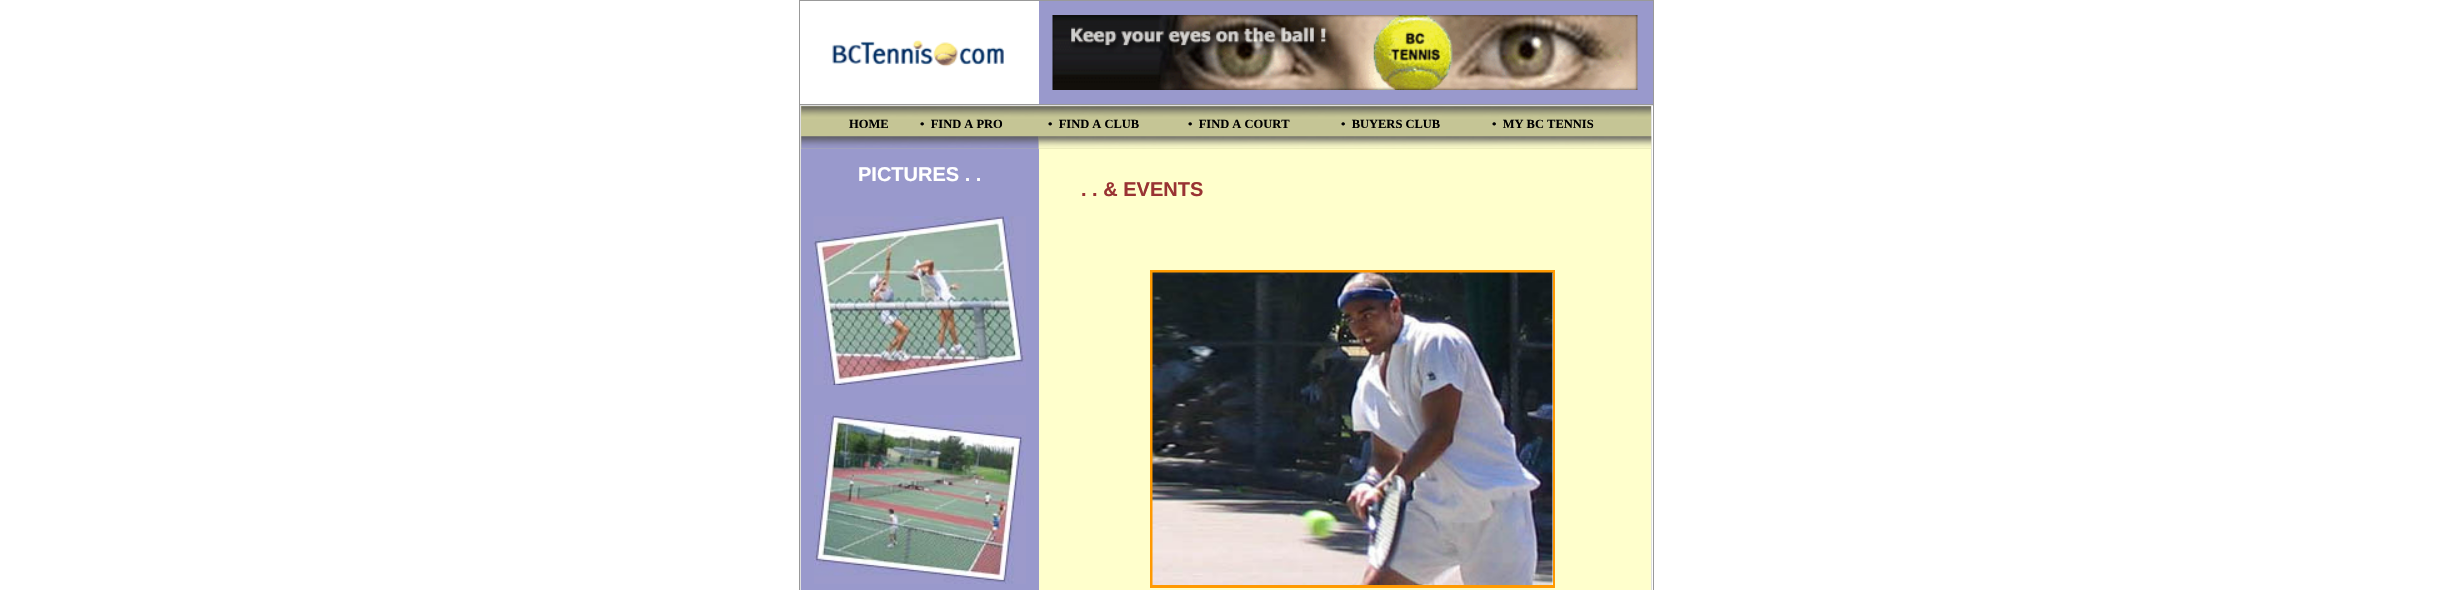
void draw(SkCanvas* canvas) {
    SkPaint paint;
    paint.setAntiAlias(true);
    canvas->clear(0xFFFFFFFF);
    paint.setColor(0xFF999999);
    canvas->drawRect(SkRect::MakeXYWH(799, 0, 855, 1), paint);
    canvas->drawRect(SkRect::MakeXYWH(1653, 0, 1, 590), paint);
    canvas->drawRect(SkRect::MakeXYWH(799, 0, 1, 590), paint);
    canvas->drawRect(SkRect::MakeXYWH(800, 104, 853, 1), paint);
    canvas->drawImageRect(SkImages::DeferredFromEncodedData(SkData::MakeFromFileName("img1.png")), SkRect::MakeXYWH(832, 40, 172, 27), SkSamplingOptions());
    paint.setColor(0xFF9999CC);
    canvas->drawRect(SkRect::MakeXYWH(1039, 1, 614, 103), paint);
    canvas->drawImageRect(SkImages::DeferredFromEncodedData(SkData::MakeFromFileName("img2.png")), SkRect::MakeXYWH(1052, 15, 586, 75), SkSamplingOptions());
    paint.setColor(0xFFE0E0E0);
    canvas->drawRect(SkRect::MakeXYWH(800, 105, 853, 1), paint);
    canvas->drawRect(SkRect::MakeXYWH(1651, 105, 1, 485), paint);
    canvas->drawRect(SkRect::MakeXYWH(800, 105, 1, 485), paint);
    paint.setColor(0xFFC5C595);
    canvas->drawRect(SkRect::MakeXYWH(801, 106, 850, 43), paint);
    canvas->drawImageRect(SkImages::DeferredFromEncodedData(SkData::MakeFromFileName("img3.png")), SkRect::MakeXYWH(801, 106, 850, 13), SkSamplingOptions());
    SkFont font1(fontMgr->matchFamilyStyle("Liberation Serif", SkFontStyle::Bold()), 12.5f);
    font1.setSubpixel(true);
    paint.setColor(0xFF000000);
    canvas->drawString("HOME", 849, 128, font1, paint);
    canvas->drawString("•  FIND A PRO", 920, 128, font1, paint);
    canvas->drawString("•  FIND A CLUB", 1048, 128, font1, paint);
    canvas->drawString("•  FIND A COURT", 1188, 128, font1, paint);
    canvas->drawString("•  BUYERS CLUB", 1341, 128, font1, paint);
    canvas->drawString("•  MY BC TENNIS", 1492, 128, font1, paint);
    canvas->drawImageRect(SkImages::DeferredFromEncodedData(SkData::MakeFromFileName("img4.png")), SkRect::MakeXYWH(801, 136, 238, 13), SkSamplingOptions());
    canvas->drawImageRect(SkImages::DeferredFromEncodedData(SkData::MakeFromFileName("img5.png")), SkRect::MakeXYWH(1038, 136, 614, 13), SkSamplingOptions());
    paint.setColor(0xFF9999CC);
    canvas->drawRect(SkRect::MakeXYWH(801, 149, 238, 441), paint);
    SkFont font2(fontMgr->matchFamilyStyle("Liberation Sans", SkFontStyle::Bold()), 20);
    font2.setSubpixel(true);
    paint.setColor(0xFFFFFFFF);
    canvas->drawString("PICTURES . .", 858, 181, font2, paint);
    canvas->drawImageRect(SkImages::DeferredFromEncodedData(SkData::MakeFromFileName("img6.png")), SkRect::MakeXYWH(813, 216, 213, 169), SkSamplingOptions());
    canvas->drawImageRect(SkImages::DeferredFromEncodedData(SkData::MakeFromFileName("img7.png")), SkRect::MakeXYWH(814, 415, 212, 169), SkSamplingOptions());
    paint.setColor(0xFFFFFFCC);
    canvas->drawRect(SkRect::MakeXYWH(1039, 149, 612, 441), paint);
    paint.setColor(0xFF993333);
    canvas->drawString(". . & EVENTS", 1081, 196, font2, paint);
    paint.setColor(0xFFFF9900);
    canvas->drawRect(SkRect::MakeXYWH(1150, 270, 405, 318), paint);
    paint.setColor(0xFFFFFFFF);
    canvas->drawRect(SkRect::MakeXYWH(1552, 273, 1, 312), paint);
    canvas->drawImageRect(SkImages::DeferredFromEncodedData(SkData::MakeFromFileName("img8.png")), SkRect::MakeXYWH(1152, 272, 401, 313), SkSamplingOptions());
}
